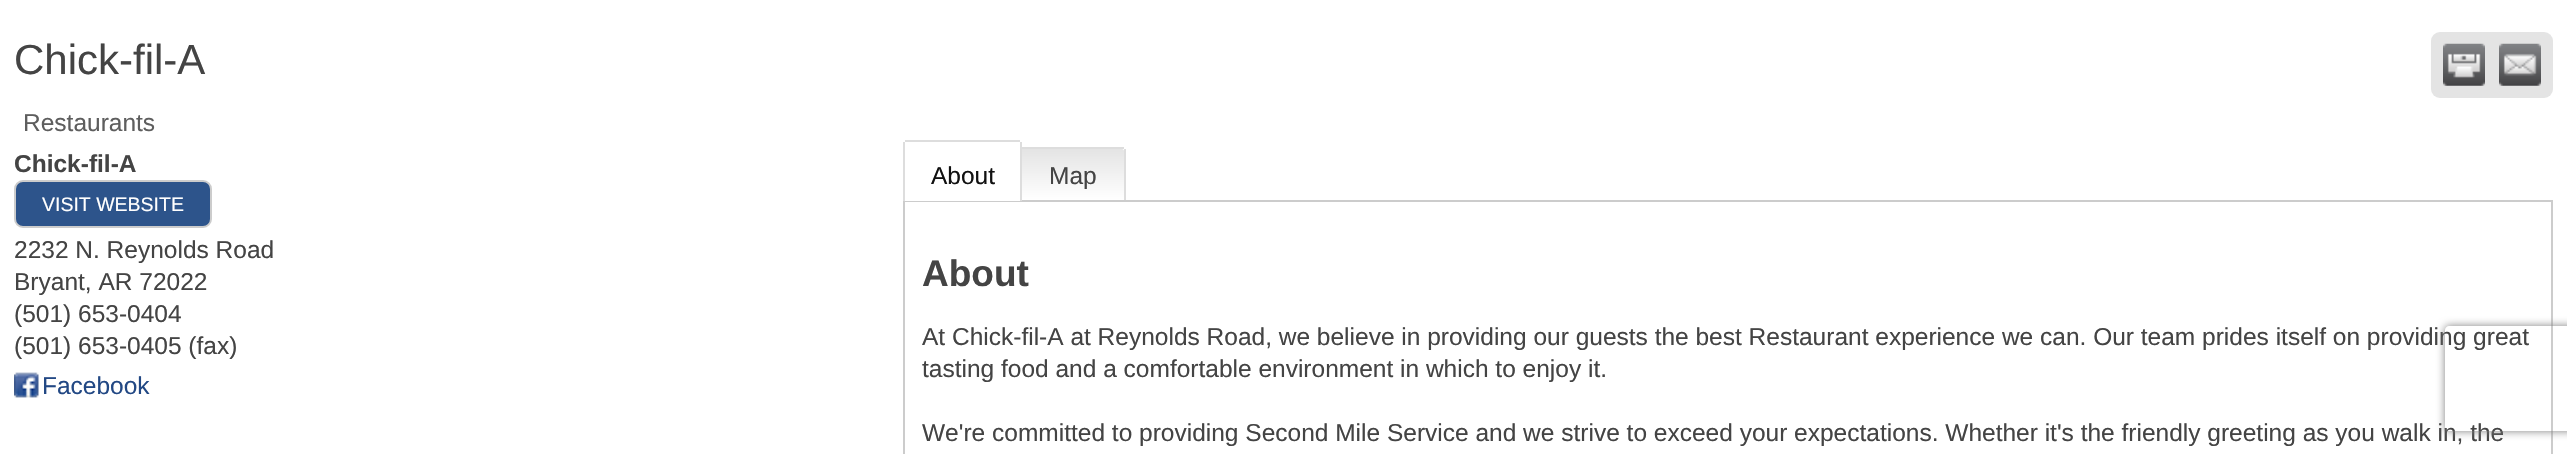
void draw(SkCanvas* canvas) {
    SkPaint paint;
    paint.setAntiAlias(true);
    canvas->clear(0xFFFFFFFF);
    SkFont font1(fontMgr->matchFamilyStyle("Liberation Sans", SkFontStyle::Normal()), 42);
    font1.setSubpixel(true);
    paint.setColor(0xFF444444);
    canvas->drawString("Chick-fil-A", 14, 74, font1, paint);
    paint.setColor(0xFFE4E4E4);
    canvas->drawRoundRect(SkRect::MakeXYWH(2431, 32, 122, 66), 9, 9, paint);
    canvas->drawImageRect(SkImages::DeferredFromEncodedData(SkData::MakeFromFileName("img1.png")), SkRect::MakeXYWH(2443, 43, 42, 43), SkSamplingOptions());
    canvas->drawImageRect(SkImages::DeferredFromEncodedData(SkData::MakeFromFileName("img2.png")), SkRect::MakeXYWH(2499, 43, 42, 43), SkSamplingOptions());
    SkFont font2(fontMgr->matchFamilyStyle("Liberation Sans", SkFontStyle::Normal()), 24.5f);
    font2.setSubpixel(true);
    paint.setColor(0xFF5E5E5E);
    canvas->drawString("Restaurants", 23, 131, font2, paint);
    SkFont font3(fontMgr->matchFamilyStyle("Liberation Sans", SkFontStyle::Bold()), 24.5f);
    font3.setSubpixel(true);
    paint.setColor(0xFF444444);
    canvas->drawString("Chick-fil-A", 14, 172, font3, paint);
    paint.setColor(0xFF2D548B);
    canvas->drawRoundRect(SkRect::MakeXYWH(15, 181, 196, 46), 8, 8, paint);
    paint.setStyle(SkPaint::kStroke_Style);
    paint.setStrokeWidth(2);
    paint.setColor(0xFFCCCCCC);
    canvas->drawRoundRect(SkRect::MakeXYWH(15, 181, 196, 46), 8, 8, paint);
    SkFont font4(fontMgr->matchFamilyStyle("Liberation Sans", SkFontStyle::Normal()), 19.5f);
    font4.setSubpixel(true);
    paint.setStyle(SkPaint::kFill_Style);
    paint.setColor(0xFFFFFFFF);
    canvas->drawString("VISIT WEBSITE", 42, 211, font4, paint);
    paint.setColor(0xFF444444);
    canvas->drawString("2232 N. Reynolds Road", 14, 258, font2, paint);
    canvas->drawString("Bryant, AR 72022", 14, 290, font2, paint);
    canvas->drawString("(501) 653-0404", 14, 322, font2, paint);
    canvas->drawString("(501) 653-0405 (fax)", 14, 354, font2, paint);
    canvas->drawImageRect(SkImages::DeferredFromEncodedData(SkData::MakeFromFileName("img3.png")), SkRect::MakeXYWH(14, 372, 25, 26), SkSamplingOptions());
    paint.setColor(0xFF224884);
    canvas->drawString("Facebook", 42, 394, font2, paint);
    paint.setStyle(SkPaint::kStroke_Style);
    paint.setColor(0xFFCCCCCC);
    canvas->drawRect(SkRect::MakeXYWH(904, 201, 1648, 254), paint);
    paint.setStyle(SkPaint::kFill_Style);
    paint.setColor(0xFFFFFFFF);
    canvas->drawPath(SkPathBuilder().moveTo(907, 142).lineTo(1018, 142).cubicTo(1019, 142, 1020, 143, 1020, 144).lineTo(1020, 201).lineTo(905, 201).lineTo(905, 144).cubicTo(905, 143, 906, 142, 907, 142).close().detach(), paint);
    paint.setColor(0xFFDDDDDD);
    canvas->drawRect(SkRect::MakeXYWH(905, 140, 115, 2), paint);
    canvas->drawRect(SkRect::MakeXYWH(1020, 142, 2, 59), paint);
    canvas->drawRect(SkRect::MakeXYWH(903, 142, 2, 59), paint);
    paint.setColor(0xFF111111);
    canvas->drawString("About", 931, 184, font2, paint);
    {
        const SkColor colors[] = {0xFFE4E4E4, 0xFFFFFFFF};
        const float stops[] = {0, 1};
        const SkPoint ends[] = {{1073, 149}, {1073, 200}};
        paint.setShader(SkGradientShader::MakeLinear(ends, colors, stops, 2, SkTileMode::kClamp));
        paint.setAlpha(255);
    }
    canvas->drawPath(SkPathBuilder().moveTo(1022, 149).lineTo(1122, 149).cubicTo(1123, 149, 1124, 150, 1124, 151).lineTo(1124, 200).lineTo(1022, 200).close().detach(), paint);
    paint.setShader(nullptr);
    paint.setColor(0xFFDDDDDD);
    canvas->drawRect(SkRect::MakeXYWH(1022, 147, 102, 2), paint);
    canvas->drawRect(SkRect::MakeXYWH(1124, 149, 2, 51), paint);
    paint.setColor(0xFF444444);
    canvas->drawString("Map", 1049, 184, font2, paint);
    SkFont font5(fontMgr->matchFamilyStyle("Liberation Sans", SkFontStyle::Bold()), 37);
    font5.setSubpixel(true);
    canvas->drawString("About", 922, 286, font5, paint);
    canvas->drawString("At Chick-fil-A at Reynolds Road, we believe in providing our guests the best Restaurant experience we can. Our team prides itself on providing great", 922, 345, font2, paint);
    canvas->drawString("tasting food and a comfortable environment in which to enjoy it.", 922, 377, font2, paint);
    canvas->drawString("We're committed to providing Second Mile Service and we strive to exceed your expectations. Whether it's the friendly greeting as you walk in, the", 922, 441, font2, paint);
    canvas->save();
    canvas->clipPath(SkPathBuilder(SkPathFillType::kEvenOdd).moveTo(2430, 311).lineTo(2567, 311).lineTo(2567, 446).lineTo(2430, 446).close().moveTo(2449, 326).lineTo(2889, 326).cubicTo(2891, 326, 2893, 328, 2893, 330).lineTo(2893, 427).cubicTo(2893, 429, 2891, 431, 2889, 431).lineTo(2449, 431).cubicTo(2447, 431, 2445, 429, 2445, 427).lineTo(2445, 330).cubicTo(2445, 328, 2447, 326, 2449, 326).close().detach(), true);
    paint.setColor(0xFF808080);
    paint.setMaskFilter(SkMaskFilter::MakeBlur(kNormal_SkBlurStyle, 4.5f));
    canvas->drawRoundRect(SkRect::MakeXYWH(2445, 326, 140, 105), 4, 4, paint);
    paint.setMaskFilter(nullptr);
    canvas->restore();
}
